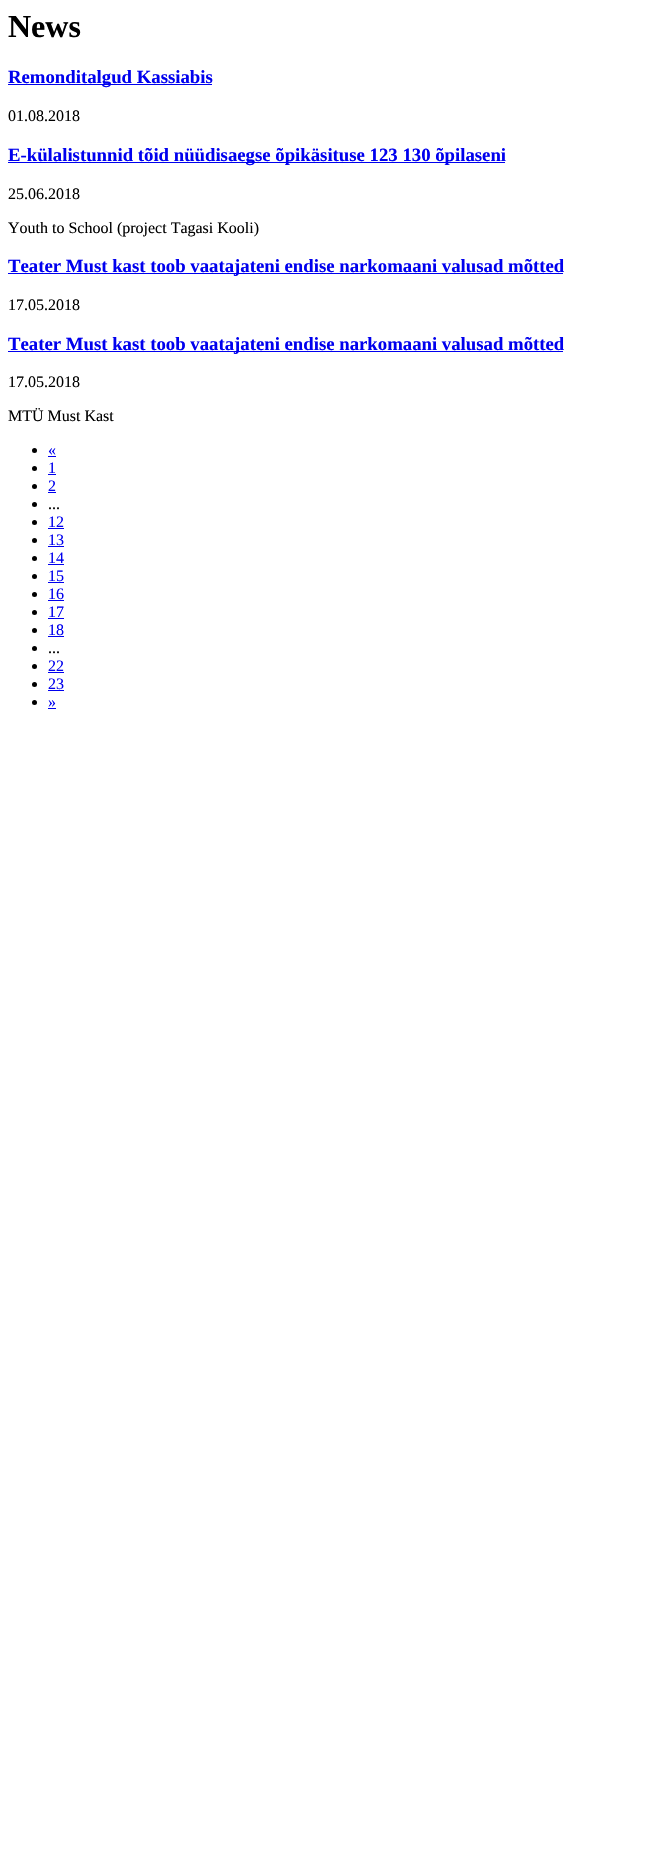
void draw(SkCanvas* canvas) {
    SkPaint paint;
    paint.setAntiAlias(true);
    canvas->clear(0xFFFFFFFF);
    SkFont font1(fontMgr->matchFamilyStyle("Liberation Serif", SkFontStyle::Bold()), 32);
    font1.setSubpixel(true);
    paint.setColor(0xFF000000);
    canvas->drawString("News", 8, 37, font1, paint);
    paint.setColor(0xFF0000EE);
    canvas->drawRect(SkRect::MakeXYWH(8, 84, 204, 1), paint);
    SkFont font2(fontMgr->matchFamilyStyle("Liberation Serif", SkFontStyle::Bold()), 18.75f);
    font2.setSubpixel(true);
    canvas->drawString("Remonditalgud Kassiabis", 8, 83, font2, paint);
    SkFont font3(fontMgr->matchFamilyStyle("Liberation Serif", SkFontStyle::Normal()), 16);
    font3.setSubpixel(true);
    paint.setColor(0xFF000000);
    canvas->drawString("01.08.2018", 8, 121, font3, paint);
    paint.setColor(0xFF0000EE);
    canvas->drawRect(SkRect::MakeXYWH(8, 162, 497, 1), paint);
    canvas->drawString("E-külalistunnid tõid nüüdisaegse õpikäsituse 123 130 õpilaseni", 8, 161, font2, paint);
    paint.setColor(0xFF000000);
    canvas->drawString("25.06.2018", 8, 199, font3, paint);
    canvas->drawString("Youth to School (project Tagasi Kooli)", 8, 233, font3, paint);
    paint.setColor(0xFF0000EE);
    canvas->drawRect(SkRect::MakeXYWH(8, 273, 555, 1), paint);
    canvas->drawString("Teater Must kast toob vaatajateni endise narkomaani valusad mõtted", 8, 272, font2, paint);
    paint.setColor(0xFF000000);
    canvas->drawString("17.05.2018", 8, 310, font3, paint);
    paint.setColor(0xFF0000EE);
    canvas->drawRect(SkRect::MakeXYWH(8, 351, 555, 1), paint);
    canvas->drawString("Teater Must kast toob vaatajateni endise narkomaani valusad mõtted", 8, 350, font2, paint);
    paint.setColor(0xFF000000);
    canvas->drawString("17.05.2018", 8, 387, font3, paint);
    canvas->drawString("MTÜ Must Kast", 8, 421, font3, paint);
    canvas->drawCircle(34.5f, 450.5f, 2.5f, paint);
    paint.setColor(0xFF0000EE);
    canvas->drawString("«", 48, 455, font3, paint);
    canvas->drawRect(SkRect::MakeXYWH(48, 456, 8, 1), paint);
    paint.setColor(0xFF000000);
    canvas->drawCircle(34.5f, 468.5f, 2.5f, paint);
    paint.setColor(0xFF0000EE);
    canvas->drawString("1", 48, 473, font3, paint);
    canvas->drawRect(SkRect::MakeXYWH(48, 474, 8, 1), paint);
    paint.setColor(0xFF000000);
    canvas->drawCircle(34.5f, 486.5f, 2.5f, paint);
    paint.setColor(0xFF0000EE);
    canvas->drawString("2", 48, 491, font3, paint);
    canvas->drawRect(SkRect::MakeXYWH(48, 492, 8, 1), paint);
    paint.setColor(0xFF000000);
    canvas->drawCircle(34.5f, 504.5f, 2.5f, paint);
    canvas->drawString("...", 48, 509, font3, paint);
    canvas->drawCircle(34.5f, 522.5f, 2.5f, paint);
    paint.setColor(0xFF0000EE);
    canvas->drawString("12", 48, 527, font3, paint);
    canvas->drawRect(SkRect::MakeXYWH(48, 528, 16, 1), paint);
    paint.setColor(0xFF000000);
    canvas->drawCircle(34.5f, 540.5f, 2.5f, paint);
    paint.setColor(0xFF0000EE);
    canvas->drawString("13", 48, 545, font3, paint);
    canvas->drawRect(SkRect::MakeXYWH(48, 546, 16, 1), paint);
    paint.setColor(0xFF000000);
    canvas->drawCircle(34.5f, 558.5f, 2.5f, paint);
    paint.setColor(0xFF0000EE);
    canvas->drawString("14", 48, 563, font3, paint);
    canvas->drawRect(SkRect::MakeXYWH(48, 564, 16, 1), paint);
    paint.setColor(0xFF000000);
    canvas->drawCircle(34.5f, 576.5f, 2.5f, paint);
    paint.setColor(0xFF0000EE);
    canvas->drawString("15", 48, 581, font3, paint);
    canvas->drawRect(SkRect::MakeXYWH(48, 582, 16, 1), paint);
    paint.setColor(0xFF000000);
    canvas->drawCircle(34.5f, 594.5f, 2.5f, paint);
    paint.setColor(0xFF0000EE);
    canvas->drawString("16", 48, 599, font3, paint);
    canvas->drawRect(SkRect::MakeXYWH(48, 600, 16, 1), paint);
    paint.setColor(0xFF000000);
    canvas->drawCircle(34.5f, 612.5f, 2.5f, paint);
    paint.setColor(0xFF0000EE);
    canvas->drawString("17", 48, 617, font3, paint);
    canvas->drawRect(SkRect::MakeXYWH(48, 618, 16, 1), paint);
    paint.setColor(0xFF000000);
    canvas->drawCircle(34.5f, 630.5f, 2.5f, paint);
    paint.setColor(0xFF0000EE);
    canvas->drawString("18", 48, 635, font3, paint);
    canvas->drawRect(SkRect::MakeXYWH(48, 636, 16, 1), paint);
    paint.setColor(0xFF000000);
    canvas->drawCircle(34.5f, 648.5f, 2.5f, paint);
    canvas->drawString("...", 48, 653, font3, paint);
    canvas->drawCircle(34.5f, 666.5f, 2.5f, paint);
    paint.setColor(0xFF0000EE);
    canvas->drawString("22", 48, 671, font3, paint);
    canvas->drawRect(SkRect::MakeXYWH(48, 672, 16, 1), paint);
    paint.setColor(0xFF000000);
    canvas->drawCircle(34.5f, 684.5f, 2.5f, paint);
    paint.setColor(0xFF0000EE);
    canvas->drawString("23", 48, 689, font3, paint);
    canvas->drawRect(SkRect::MakeXYWH(48, 690, 16, 1), paint);
    paint.setColor(0xFF000000);
    canvas->drawCircle(34.5f, 702.5f, 2.5f, paint);
    paint.setColor(0xFF0000EE);
    canvas->drawString("»", 48, 707, font3, paint);
    canvas->drawRect(SkRect::MakeXYWH(48, 708, 8, 1), paint);
}
